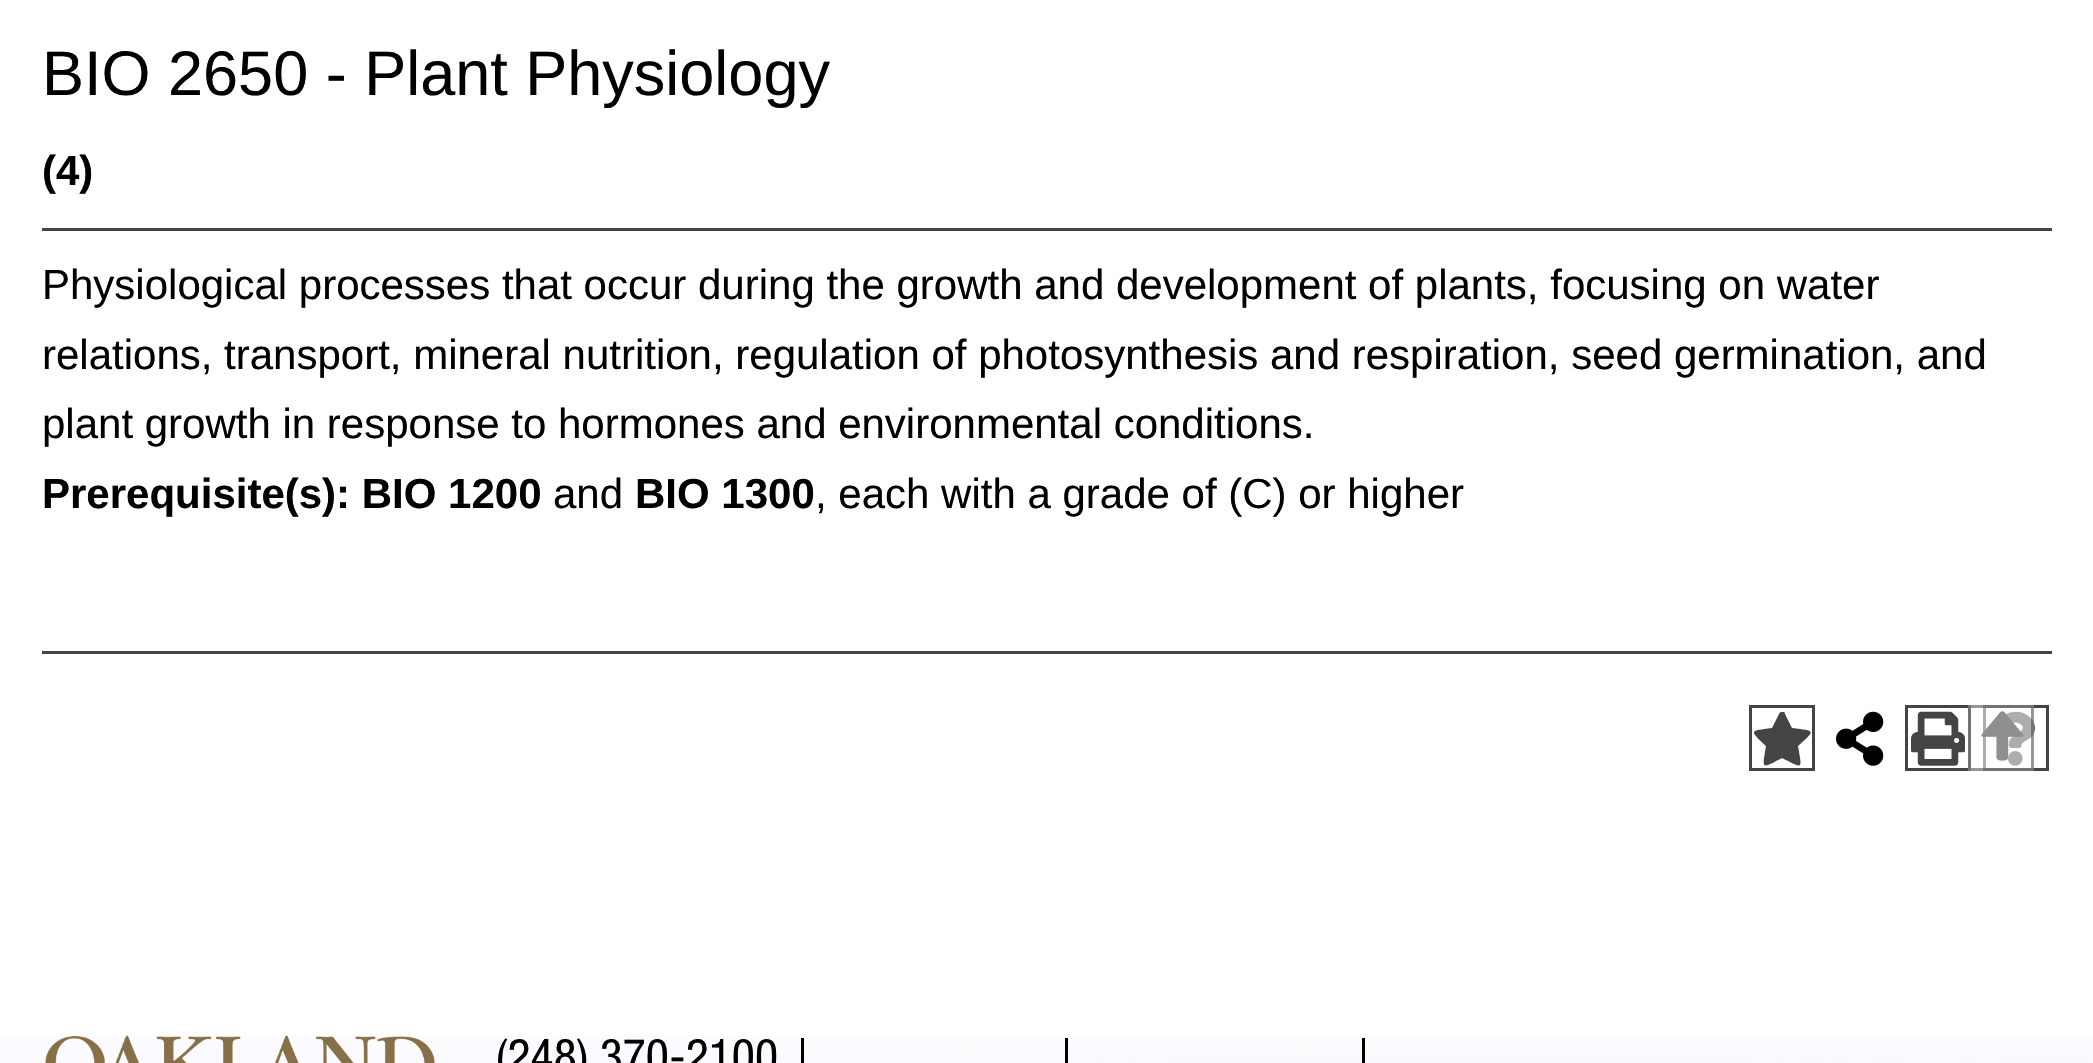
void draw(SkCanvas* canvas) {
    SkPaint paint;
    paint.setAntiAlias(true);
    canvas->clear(0xFFFFFFFF);
    SkFont font1(fontMgr->matchFamilyStyle("Liberation Sans", SkFontStyle::Normal()), 63);
    font1.setSubpixel(true);
    paint.setColor(0xFF000000);
    canvas->drawString("BIO 2650 - Plant Physiology", 42, 95, font1, paint);
    SkFont font2(fontMgr->matchFamilyStyle("Liberation Sans", SkFontStyle::Bold()), 42);
    font2.setSubpixel(true);
    canvas->drawString("(4)", 42, 185, font2, paint);
    paint.setColor(0xFF444444);
    canvas->drawRect(SkRect::MakeXYWH(42, 228, 2010, 3), paint);
    SkFont font3(fontMgr->matchFamilyStyle("Liberation Sans", SkFontStyle::Normal()), 42);
    font3.setSubpixel(true);
    paint.setColor(0xFF000000);
    canvas->drawString("Physiological processes that occur during the growth and development of plants, focusing on water", 42, 299, font3, paint);
    canvas->drawString("relations, transport, mineral nutrition, regulation of photosynthesis and respiration, seed germination, and", 42, 369, font3, paint);
    canvas->drawString("plant growth in response to hormones and environmental conditions.", 42, 438, font3, paint);
    canvas->drawString("Prerequisite(s): BIO 1200", 42, 508, font2, paint);
    canvas->drawString("and", 553, 508, font3, paint);
    canvas->drawString("BIO 1300", 635, 508, font2, paint);
    canvas->drawString(", each with a grade of (C) or higher", 815, 508, font3, paint);
    paint.setColor(0xFF444444);
    canvas->drawRect(SkRect::MakeXYWH(42, 651, 2010, 3), paint);
    paint.setStyle(SkPaint::kStroke_Style);
    paint.setStrokeWidth(3);
    canvas->drawRect(SkRect::MakeXYWH(1750.5f, 706.5f, 63, 63), paint);
    paint.setStyle(SkPaint::kFill_Style);
    canvas->drawPath(SkPathBuilder().moveTo(1779, 714).cubicTo(1780, 712, 1781, 712, 1782, 712).cubicTo(1784, 712, 1785, 712, 1785, 714).lineTo(1792, 728).cubicTo(1816, 731, 1816, 730, 1798, 746).cubicTo(1802, 770, 1804, 769, 1782, 758).cubicTo(1761, 769, 1762, 770, 1766, 746).cubicTo(1749, 730, 1749, 731, 1772, 728).close().detach(), paint);
    canvas->drawImageRect(SkImages::DeferredFromEncodedData(SkData::MakeFromFileName("img1.png")), SkRect::MakeXYWH(1836, 711, 48, 55), SkSamplingOptions());
    paint.setStyle(SkPaint::kStroke_Style);
    canvas->drawRect(SkRect::MakeXYWH(1906.5f, 706.5f, 63, 63), paint);
    canvas->drawImageRect(SkImages::DeferredFromEncodedData(SkData::MakeFromFileName("img2.png")), SkRect::MakeXYWH(1911, 711, 54, 55), SkSamplingOptions());
    canvas->drawRect(SkRect::MakeXYWH(1984.5f, 706.5f, 63, 63), paint);
    canvas->drawImageRect(SkImages::DeferredFromEncodedData(SkData::MakeFromFileName("img3.png")), SkRect::MakeXYWH(1997, 711, 38, 55), SkSamplingOptions());
    paint.setStyle(SkPaint::kFill_Style);
    paint.setColor(0x8FFFFFFF);
    canvas->drawRect(SkRect::MakeXYWH(1968, 705, 66, 66), paint);
    paint.setStyle(SkPaint::kStroke_Style);
    paint.setColor(0x8F444444);
    canvas->drawRect(SkRect::MakeXYWH(1969.5f, 706.5f, 63, 63), paint);
    SkFont font4(fontMgr->matchFamilyStyle("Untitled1", SkFontStyle(500, SkFontStyle::kNormal_Width, SkFontStyle::kUpright_Slant)), 54);
    font4.setSubpixel(true);
    paint.setStyle(SkPaint::kFill_Style);
    paint.setColor(0xFF8F8F8F);
    canvas->drawString("T", 1974, 752, font4, paint);
    canvas->drawImageRect(SkImages::DeferredFromEncodedData(SkData::MakeFromFileName("img4.png")), SkRect::MakeXYWH(0, 1035, 2093, 28), SkSamplingOptions());
    canvas->drawImageRect(SkImages::DeferredFromEncodedData(SkData::MakeFromFileName("img5.png")), SkRect::MakeXYWH(45, 1035, 390, 28), SkSamplingOptions());
    paint.setColor(0xFF000000);
    canvas->drawRect(SkRect::MakeXYWH(801, 1038, 3, 25), paint);
    SkFont font5(fontMgr->matchFamilyStyle("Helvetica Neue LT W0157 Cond", SkFontStyle::Normal()), 48);
    font5.setSubpixel(true);
    canvas->drawString("(248) 370-2100", 496, 1073, font5, paint);
    canvas->drawRect(SkRect::MakeXYWH(1065, 1038, 3, 25), paint);
    canvas->drawRect(SkRect::MakeXYWH(1362, 1038, 3, 25), paint);
}
